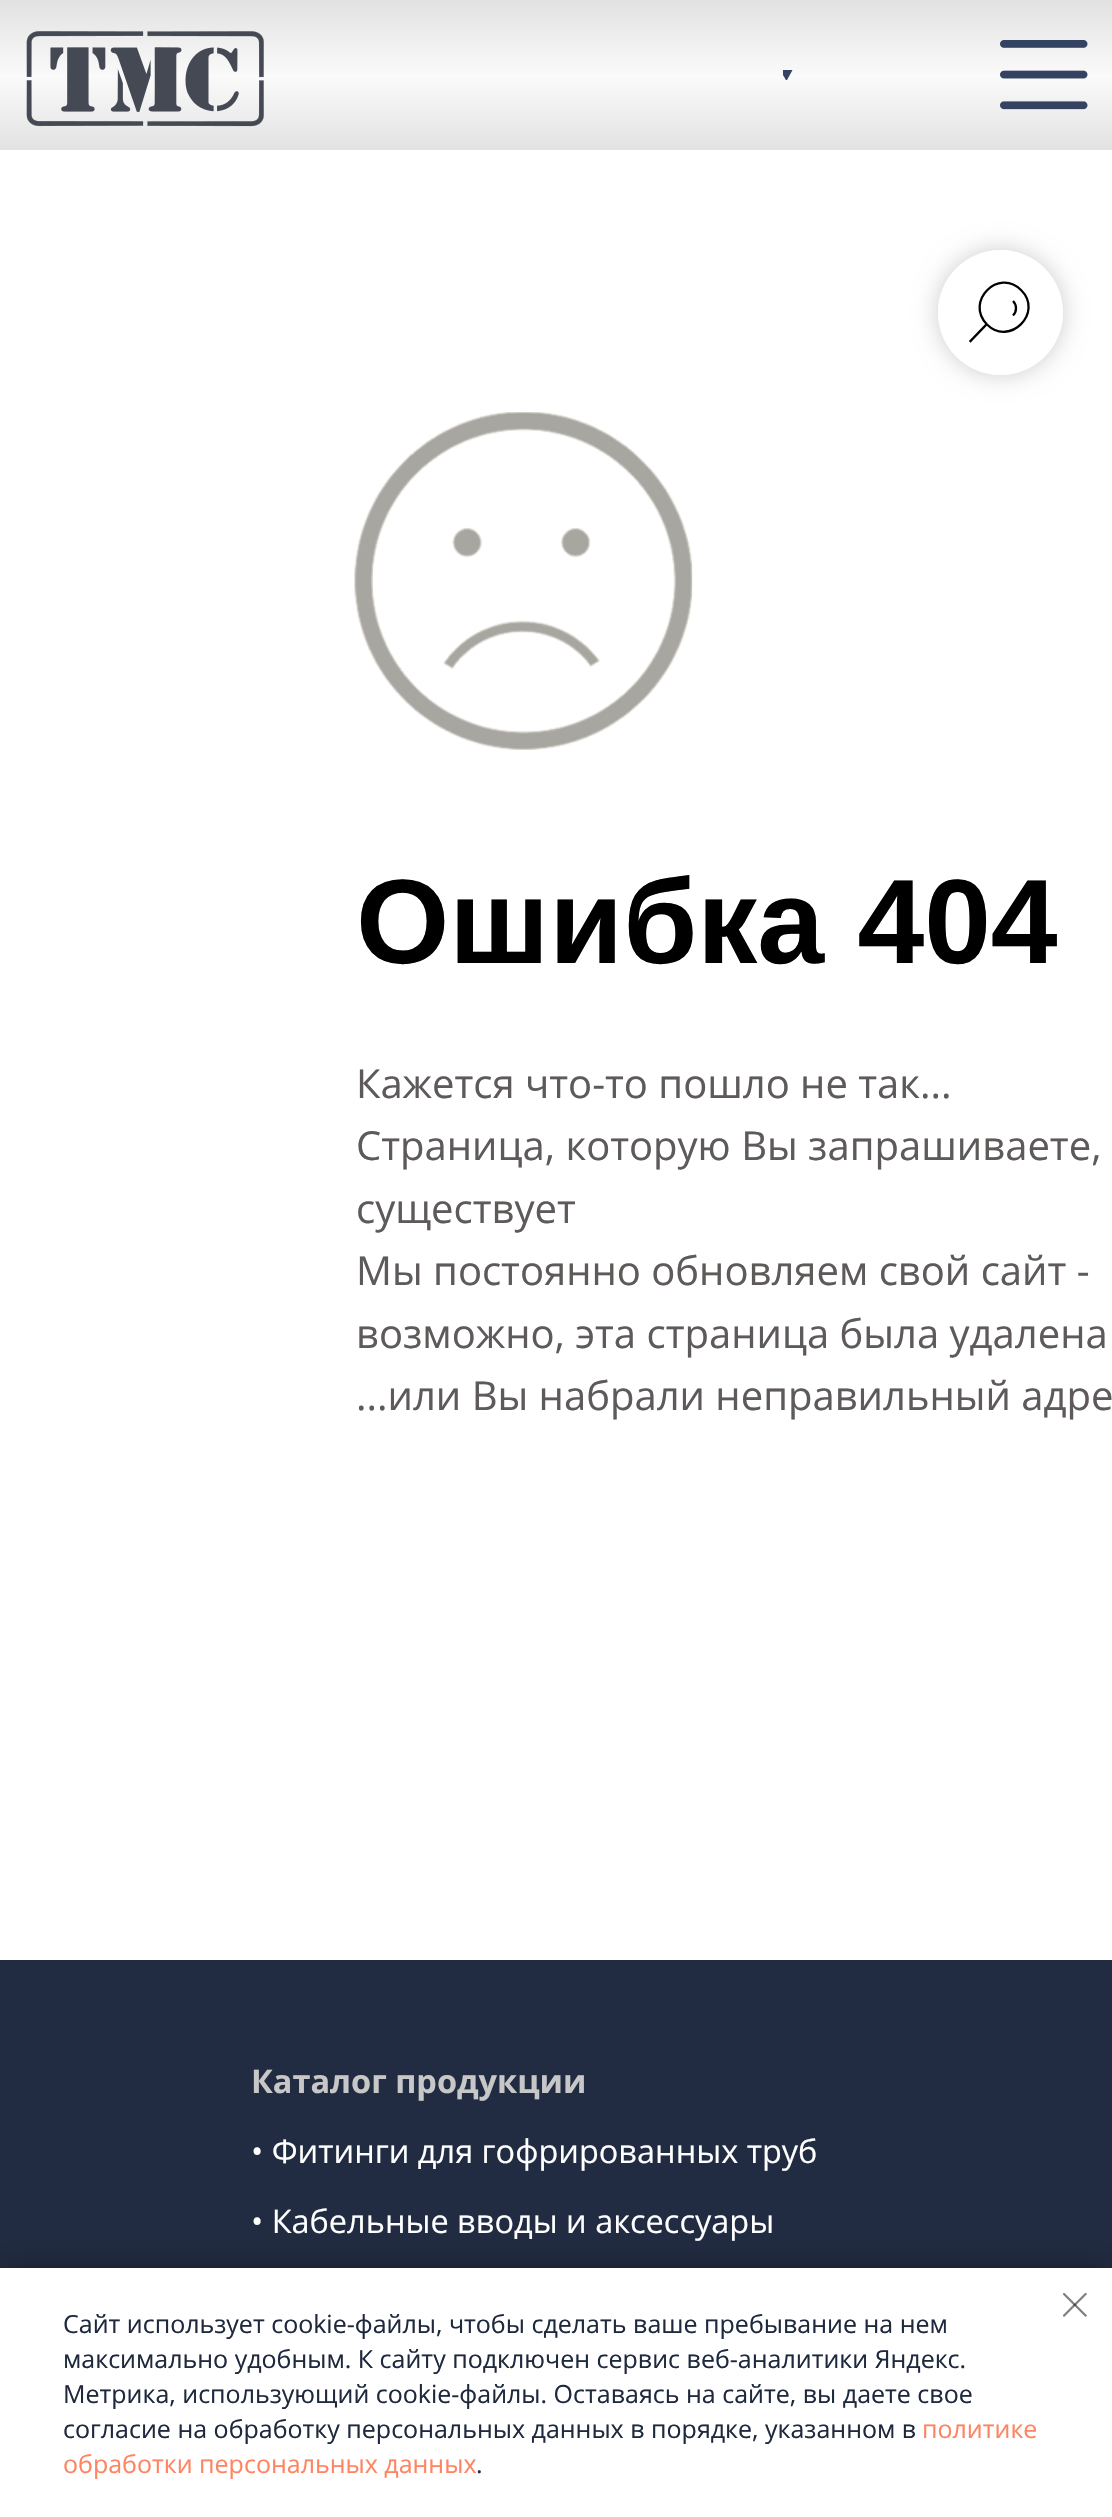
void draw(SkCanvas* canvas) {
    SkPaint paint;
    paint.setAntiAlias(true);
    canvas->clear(0xFFFFFFFF);
    {
        const SkColor colors[] = {0xFFE2E2E2, 0xFFFAFAFA, 0xFFE2E2E2};
        const float stops[] = {0, 0.49f, 1};
        const SkPoint ends[] = {{556, 150}, {556, 0}};
        paint.setShader(SkGradientShader::MakeLinear(ends, colors, stops, 3, SkTileMode::kClamp));
        paint.setAlpha(255);
    }
    canvas->drawRect(SkRect::MakeXYWH(0, 0, 1112, 150), paint);
    canvas->drawImageRect(SkImages::DeferredFromEncodedData(SkData::MakeFromFileName("img1.png")), SkRect::MakeXYWH(26, 31, 238, 96), SkSamplingOptions());
    canvas->save();
    canvas->clipRect(SkRect::MakeXYWH(783, 70, 12, 10));
    paint.setShader(nullptr);
    paint.setColor(0xFF344361);
    canvas->drawPath(SkPathBuilder().moveTo(786.5f, 81).lineTo(780, 70).lineTo(792.5f, 70).close().detach(), paint);
    canvas->restore();
    canvas->drawImageRect(SkImages::DeferredFromEncodedData(SkData::MakeFromFileName("img2.png")), SkRect::MakeXYWH(1000, 40, 88, 70), SkSamplingOptions());
    canvas->save();
    canvas->clipPath(SkPathBuilder(SkPathFillType::kEvenOdd).moveTo(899, 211).lineTo(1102, 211).lineTo(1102, 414).lineTo(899, 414).close().moveTo(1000.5f, 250).cubicTo(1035, 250, 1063, 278, 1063, 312.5f).cubicTo(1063, 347, 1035, 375, 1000.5f, 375).cubicTo(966, 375, 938, 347, 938, 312.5f).cubicTo(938, 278, 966, 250, 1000.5f, 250).close().detach(), true);
    paint.setColor(0x33000000);
    paint.setMaskFilter(SkMaskFilter::MakeBlur(kNormal_SkBlurStyle, 12.5f));
    canvas->drawRoundRect(SkRect::MakeXYWH(938, 250, 125, 125), 62.5f, 62.5f, paint);
    paint.setMaskFilter(nullptr);
    canvas->restore();
    paint.setColor(0xCCFFFFFF);
    canvas->drawCircle(1000.5f, 312.5f, 62.5f, paint);
    paint.setStyle(SkPaint::kStroke_Style);
    paint.setStrokeWidth(2.3f);
    paint.setStrokeCap(SkPaint::kSquare_Cap);
    paint.setColor(0xFF000000);
    canvas->drawPath(SkPathBuilder().moveTo(986, 325).lineTo(970.5f, 341).detach(), paint);
    paint.setStrokeCap(SkPaint::kButt_Cap);
    canvas->drawPath(SkPathBuilder().moveTo(1021, 290).cubicTo(1044, 312.5f, 1009.5f, 347, 987, 324.5f).cubicTo(964.5f, 301.5f, 998.5f, 267.5f, 1021, 290).close().moveTo(1013, 301).cubicTo(1017, 305, 1017, 311.5f, 1013, 315.5f).detach(), paint);
    canvas->drawImageRect(SkImages::DeferredFromEncodedData(SkData::MakeFromFileName("img3.png")), SkRect::MakeXYWH(354, 412, 339, 338), SkSamplingOptions());
    SkFont font1(fontMgr->matchFamilyStyle("Liberation Sans", SkFontStyle::Bold()), 120);
    font1.setSubpixel(true);
    paint.setStyle(SkPaint::kFill_Style);
    canvas->drawString("Ошибка 404", 356, 963, font1, paint);
    SkFont font2(fontMgr->matchFamilyStyle("Open Sans", SkFontStyle::Normal()), 40);
    font2.setSubpixel(true);
    paint.setColor(0xFF5E5A5A);
    canvas->drawString("Кажется что-то пошло не так...", 356, 1098, font2, paint);
    canvas->drawString("Страница, которую Вы запрашиваете,", 356, 1160, font2, paint);
    canvas->drawString("существует", 356, 1223, font2, paint);
    canvas->drawString("Мы постоянно обновляем свой сайт -", 356, 1285, font2, paint);
    canvas->drawString("возможно, эта страница была удалена", 356, 1348, font2, paint);
    canvas->drawString("...или Вы набрали неправильный адре", 356, 1410, font2, paint);
    paint.setColor(0xFF212B41);
    canvas->drawRect(SkRect::MakeXYWH(0, 1960, 1112, 308), paint);
    SkFont font3(fontMgr->matchFamilyStyle("Open Sans", SkFontStyle::Bold()), 32.5f);
    font3.setSubpixel(true);
    paint.setColor(0xFFC7C7C7);
    canvas->drawString("Каталог продукции", 251, 2093, font3, paint);
    SkFont font4(fontMgr->matchFamilyStyle("Open Sans", SkFontStyle::Normal()), 32.5f);
    font4.setSubpixel(true);
    paint.setColor(0xFFFFFFFF);
    canvas->drawString("• Фитинги для гофрированных труб", 251, 2163, font4, paint);
    canvas->drawString("• Кабельные вводы и аксессуары", 251, 2233, font4, paint);
    paint.setColor(0x4D000000);
    paint.setMaskFilter(SkMaskFilter::MakeBlur(kNormal_SkBlurStyle, 12.5f));
    canvas->drawRect(SkRect::MakeXYWH(0, 2268, 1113, 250), paint);
    paint.setMaskFilter(nullptr);
    paint.setColor(0xFFFFFFFF);
    canvas->drawRect(SkRect::MakeXYWH(0, 2268, 1112, 249), paint);
    canvas->drawImageRect(SkImages::DeferredFromEncodedData(SkData::MakeFromFileName("img4.png")), SkRect::MakeXYWH(1063, 2293, 24, 24), SkSamplingOptions());
    SkFont font5(fontMgr->matchFamilyStyle("Open Sans", SkFontStyle::Normal()), 25);
    font5.setSubpixel(true);
    paint.setColor(0xFF1F293E);
    canvas->drawString("Сайт использует cookie-файлы, чтобы сделать ваше пребывание на нем", 63, 2333, font5, paint);
    canvas->drawString("максимально удобным. К cайту подключен сервис веб-аналитики Яндекс.", 63, 2368, font5, paint);
    canvas->drawString("Метрика, использующий cookie-файлы. Оставаясь на сайте, вы даете свое", 63, 2403, font5, paint);
    canvas->drawString("согласие на обработку персональных данных в порядке, указанном в", 63, 2438, font5, paint);
    paint.setColor(0xFFFF8562);
    canvas->drawString("политике", 922, 2438, font5, paint);
    canvas->drawString("обработки персональных данных", 63, 2473, font5, paint);
    paint.setColor(0xFF1F293E);
    canvas->drawString(".", 476, 2473, font5, paint);
}
